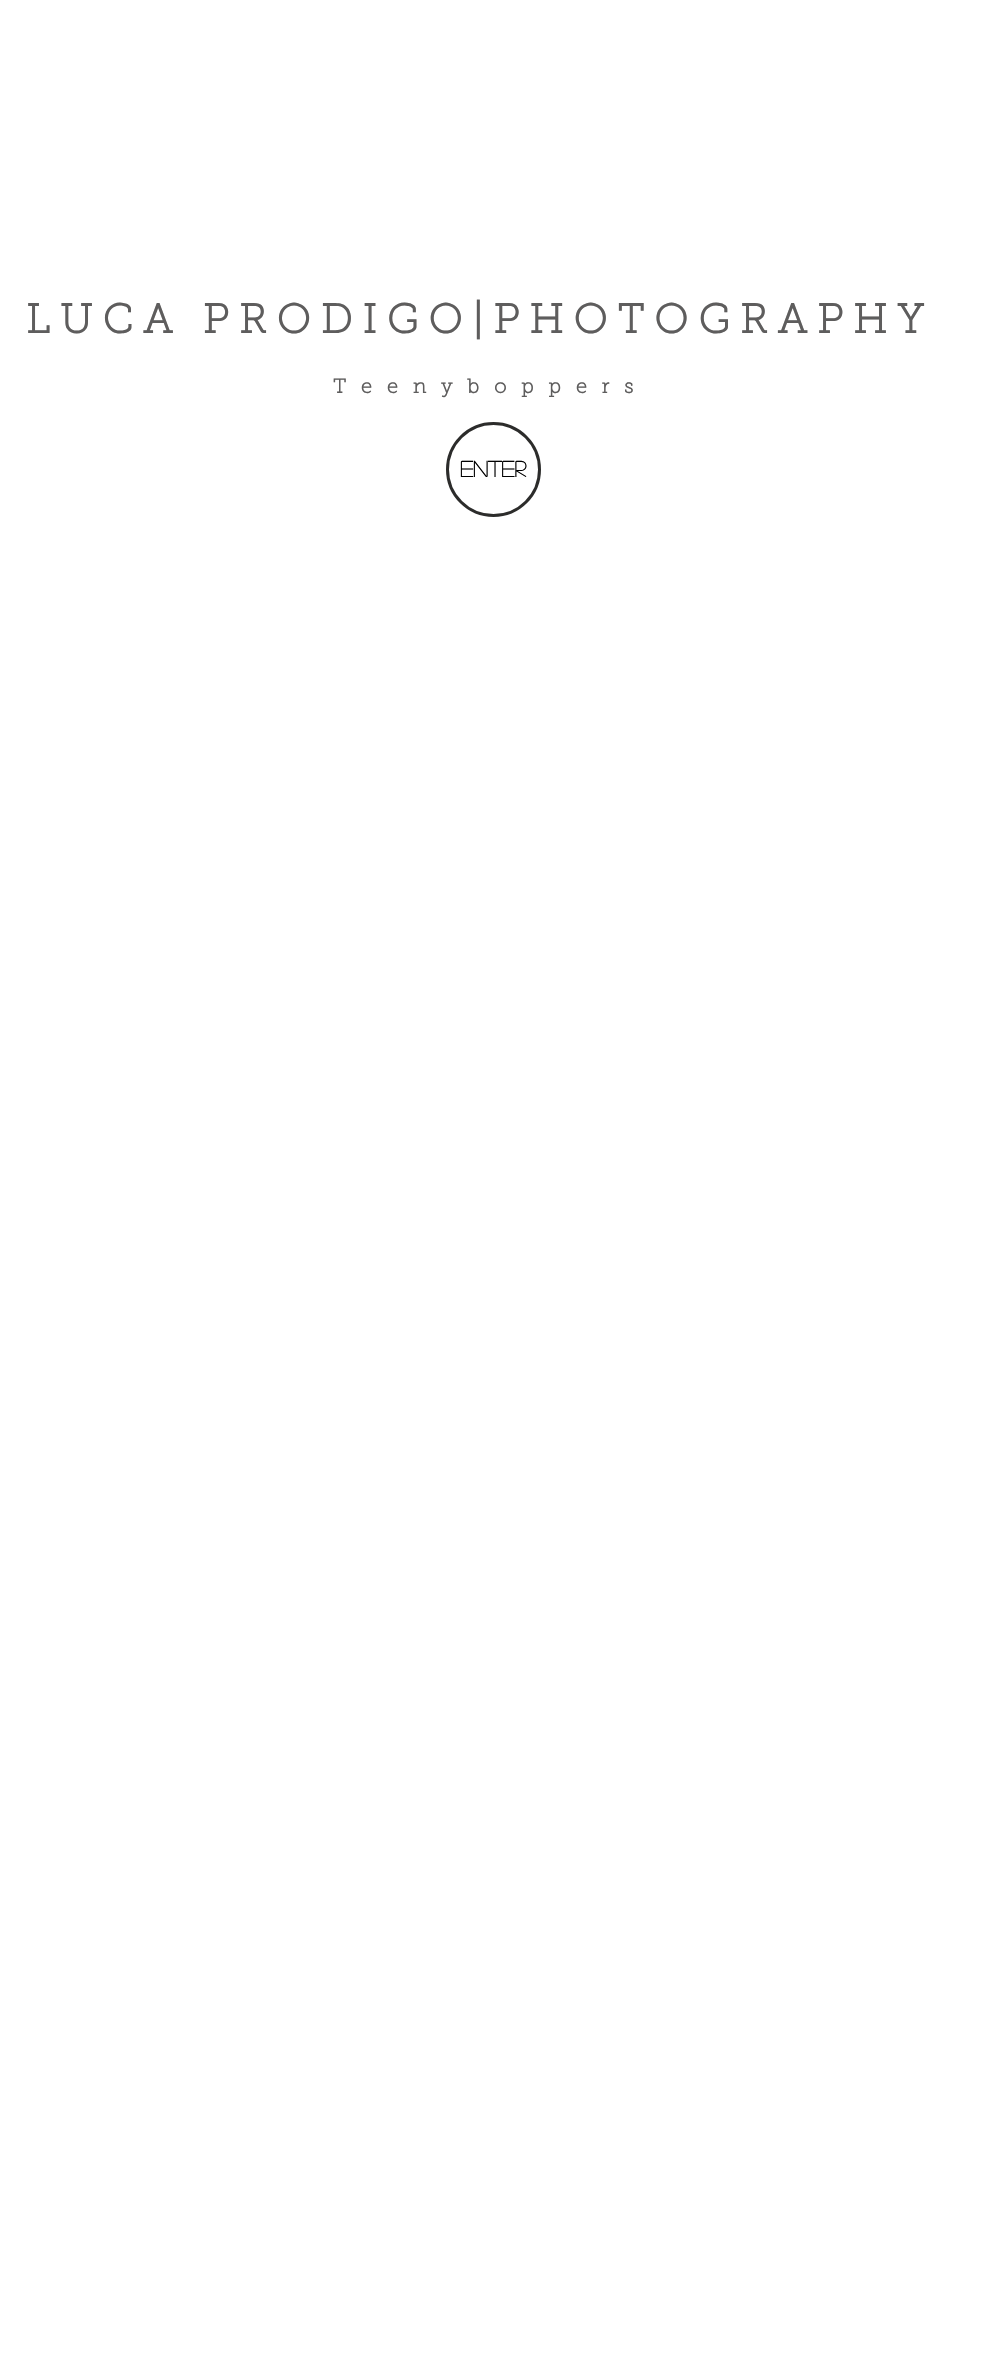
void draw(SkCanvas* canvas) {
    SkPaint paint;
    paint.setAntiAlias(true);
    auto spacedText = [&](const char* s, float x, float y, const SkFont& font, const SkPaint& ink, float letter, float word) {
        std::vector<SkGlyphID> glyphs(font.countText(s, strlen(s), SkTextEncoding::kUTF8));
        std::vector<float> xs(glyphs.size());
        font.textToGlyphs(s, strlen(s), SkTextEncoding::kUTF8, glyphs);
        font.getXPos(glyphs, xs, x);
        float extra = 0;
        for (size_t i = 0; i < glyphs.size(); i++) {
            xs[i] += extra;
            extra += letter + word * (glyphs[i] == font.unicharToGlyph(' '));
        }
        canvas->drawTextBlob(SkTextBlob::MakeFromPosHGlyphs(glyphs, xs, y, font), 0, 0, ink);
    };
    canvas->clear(0xFFFFFFFF);
    SkFont font1(fontMgr->matchFamilyStyle("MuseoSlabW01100", SkFontStyle::Bold()), 41);
    font1.setSubpixel(true);
    paint.setColor(0xFF5E5D5D);
    spacedText("LUCA PRODIGO|PHOTOGRAPHY", 26, 333, font1, paint, 10.25f, 0);
    SkFont font2(fontMgr->matchFamilyStyle("MuseoSlabW01100", SkFontStyle::Bold()), 20);
    font2.setSubpixel(true);
    spacedText("T e e n y b o p p e r s", 333, 393, font2, paint, 5, 0);
    paint.setStyle(SkPaint::kStroke_Style);
    paint.setStrokeWidth(3);
    paint.setColor(0xFF2C2C2B);
    canvas->drawCircle(493.5f, 469.5f, 46, paint);
    SkFont font3(fontMgr->matchFamilyStyle("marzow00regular", SkFontStyle::Bold()), 22);
    font3.setSubpixel(true);
    paint.setStyle(SkPaint::kFill_Style);
    paint.setColor(0xFF000000);
    canvas->drawString("Enter", 460, 477, font3, paint);
}
